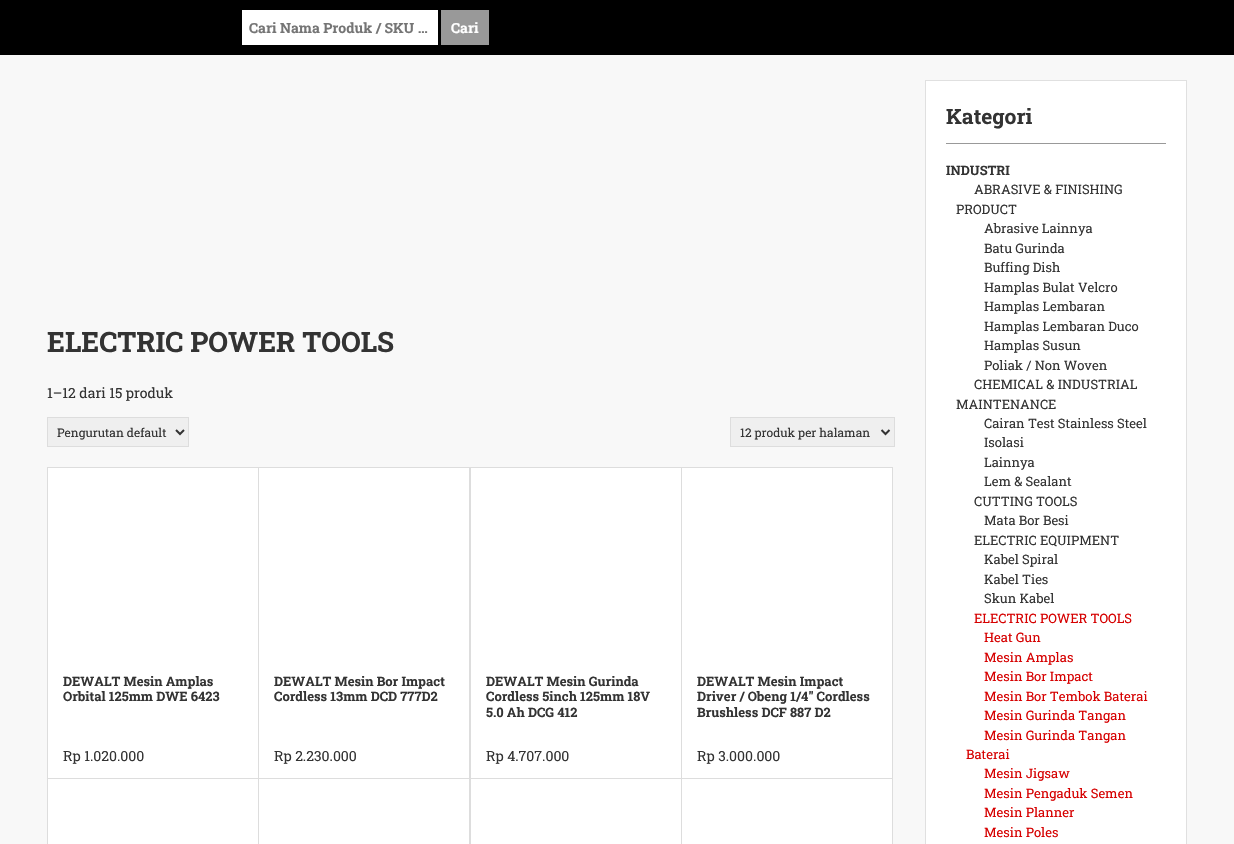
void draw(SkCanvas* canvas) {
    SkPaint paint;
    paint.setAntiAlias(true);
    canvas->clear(0xFFF8F8F8);
    paint.setColor(0xFF000000);
    canvas->drawRect(SkRect::MakeXYWH(0, 0, 1234, 55), paint);
    paint.setColor(0xFFFFFFFF);
    canvas->drawRect(SkRect::MakeXYWH(242, 10, 196, 35), paint);
    SkFont font1(fontMgr->matchFamilyStyle("Roboto Slab", SkFontStyle::Bold()), 14);
    font1.setSubpixel(true);
    paint.setColor(0xFF757575);
    canvas->drawString("Cari Nama Produk / SKU …", 249, 33, font1, paint);
    paint.setColor(0xFF999999);
    canvas->drawRect(SkRect::MakeXYWH(441, 10, 48, 35), paint);
    paint.setColor(0xFFFFFFFF);
    canvas->drawString("Cari", 451, 33, font1, paint);
    SkFont font2(fontMgr->matchFamilyStyle("Roboto Slab", SkFontStyle::Bold()), 28);
    font2.setSubpixel(true);
    paint.setColor(0xFF333333);
    canvas->drawString("ELECTRIC POWER TOOLS", 47, 352, font2, paint);
    SkFont font3(fontMgr->matchFamilyStyle("Roboto Slab", SkFontStyle::Normal()), 14);
    font3.setSubpixel(true);
    canvas->drawString("1–12 dari 15 produk", 47, 398, font3, paint);
    paint.setColor(0xFFEFEFEF);
    canvas->drawRect(SkRect::MakeXYWH(47.5f, 417.5f, 141, 29), paint);
    paint.setStyle(SkPaint::kStroke_Style);
    paint.setStrokeWidth(1);
    paint.setColor(0xFFDDDDDD);
    canvas->drawRect(SkRect::MakeXYWH(47.5f, 417.5f, 141, 29), paint);
    paint.setStrokeWidth(2);
    paint.setColor(0xFF333333);
    canvas->drawPath(SkPathBuilder().moveTo(176, 430).lineTo(180, 434).lineTo(184, 430).detach(), paint);
    SkFont font4(fontMgr->matchFamilyStyle("Roboto Slab", SkFontStyle::Normal()), 12);
    font4.setSubpixel(true);
    paint.setStyle(SkPaint::kFill_Style);
    canvas->drawString("Pengurutan default", 57, 437, font4, paint);
    paint.setColor(0xFFEFEFEF);
    canvas->drawRect(SkRect::MakeXYWH(730.5f, 417.5f, 164, 29), paint);
    paint.setStyle(SkPaint::kStroke_Style);
    paint.setStrokeWidth(1);
    paint.setColor(0xFFDDDDDD);
    canvas->drawRect(SkRect::MakeXYWH(730.5f, 417.5f, 164, 29), paint);
    paint.setStrokeWidth(2);
    paint.setColor(0xFF333333);
    canvas->drawPath(SkPathBuilder().moveTo(881.5f, 430).lineTo(885.5f, 434).lineTo(889.5f, 430).detach(), paint);
    paint.setStyle(SkPaint::kFill_Style);
    canvas->drawString("12 produk per halaman", 740, 437, font4, paint);
    paint.setColor(0xFFFFFFFF);
    canvas->drawRect(SkRect::MakeXYWH(48, 468, 210, 310), paint);
    paint.setStyle(SkPaint::kStroke_Style);
    paint.setStrokeWidth(1);
    paint.setColor(0xFFDDDDDD);
    canvas->drawRect(SkRect::MakeXYWH(47.5f, 467.5f, 211, 314), paint);
    SkFont font5(fontMgr->matchFamilyStyle("Roboto Slab", SkFontStyle::Bold()), 13);
    font5.setSubpixel(true);
    paint.setStyle(SkPaint::kFill_Style);
    paint.setColor(0xFF333333);
    canvas->drawString("DEWALT Mesin Amplas", 63, 686, font5, paint);
    canvas->drawString("Orbital 125mm DWE 6423", 63, 701, font5, paint);
    canvas->drawString("Rp 1.020.000", 63, 761, font3, paint);
    paint.setColor(0xFFFFFFFF);
    canvas->drawRect(SkRect::MakeXYWH(259, 468, 210, 310), paint);
    paint.setStyle(SkPaint::kStroke_Style);
    paint.setColor(0xFFDDDDDD);
    canvas->drawRect(SkRect::MakeXYWH(258.5f, 467.5f, 211, 314), paint);
    paint.setStyle(SkPaint::kFill_Style);
    paint.setColor(0xFF333333);
    canvas->drawString("DEWALT Mesin Bor Impact", 274, 686, font5, paint);
    canvas->drawString("Cordless 13mm DCD 777D2", 274, 701, font5, paint);
    canvas->drawString("Rp 2.230.000", 274, 761, font3, paint);
    paint.setColor(0xFFFFFFFF);
    canvas->drawRect(SkRect::MakeXYWH(471, 468, 210, 310), paint);
    paint.setStyle(SkPaint::kStroke_Style);
    paint.setColor(0xFFDDDDDD);
    canvas->drawRect(SkRect::MakeXYWH(470.5f, 467.5f, 211, 314), paint);
    paint.setStyle(SkPaint::kFill_Style);
    paint.setColor(0xFF333333);
    canvas->drawString("DEWALT Mesin Gurinda", 486, 686, font5, paint);
    canvas->drawString("Cordless 5inch 125mm 18V", 486, 701, font5, paint);
    canvas->drawString("5.0 Ah DCG 412", 486, 717, font5, paint);
    canvas->drawString("Rp 4.707.000", 486, 761, font3, paint);
    paint.setColor(0xFFFFFFFF);
    canvas->drawRect(SkRect::MakeXYWH(682, 468, 210, 310), paint);
    paint.setStyle(SkPaint::kStroke_Style);
    paint.setColor(0xFFDDDDDD);
    canvas->drawRect(SkRect::MakeXYWH(681.5f, 467.5f, 211, 314), paint);
    paint.setStyle(SkPaint::kFill_Style);
    paint.setColor(0xFF333333);
    canvas->drawString("DEWALT Mesin Impact", 697, 686, font5, paint);
    canvas->drawString("Driver / Obeng 1/4″ Cordless", 697, 701, font5, paint);
    canvas->drawString("Brushless DCF 887 D2", 697, 717, font5, paint);
    canvas->drawString("Rp 3.000.000", 697, 761, font3, paint);
    paint.setColor(0xFFFFFFFF);
    canvas->drawRect(SkRect::MakeXYWH(47.5f, 778.5f, 211, 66), paint);
    paint.setStyle(SkPaint::kStroke_Style);
    paint.setColor(0xFFDDDDDD);
    canvas->drawRect(SkRect::MakeXYWH(47.5f, 778.5f, 211, 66), paint);
    paint.setStyle(SkPaint::kFill_Style);
    paint.setColor(0xFFFFFFFF);
    canvas->drawRect(SkRect::MakeXYWH(258.5f, 778.5f, 211, 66), paint);
    paint.setStyle(SkPaint::kStroke_Style);
    paint.setColor(0xFFDDDDDD);
    canvas->drawRect(SkRect::MakeXYWH(258.5f, 778.5f, 211, 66), paint);
    paint.setStyle(SkPaint::kFill_Style);
    paint.setColor(0xFFFFFFFF);
    canvas->drawRect(SkRect::MakeXYWH(470.5f, 778.5f, 211, 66), paint);
    paint.setStyle(SkPaint::kStroke_Style);
    paint.setColor(0xFFDDDDDD);
    canvas->drawRect(SkRect::MakeXYWH(470.5f, 778.5f, 211, 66), paint);
    paint.setStyle(SkPaint::kFill_Style);
    paint.setColor(0xFFFFFFFF);
    canvas->drawRect(SkRect::MakeXYWH(681.5f, 778.5f, 211, 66), paint);
    paint.setStyle(SkPaint::kStroke_Style);
    paint.setColor(0xFFDDDDDD);
    canvas->drawRect(SkRect::MakeXYWH(681.5f, 778.5f, 211, 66), paint);
    paint.setStyle(SkPaint::kFill_Style);
    paint.setColor(0xFFFFFFFF);
    canvas->drawRect(SkRect::MakeXYWH(925.5f, 80.5f, 261, 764), paint);
    paint.setStyle(SkPaint::kStroke_Style);
    paint.setColor(0xFFE0E0E0);
    canvas->drawRect(SkRect::MakeXYWH(925.5f, 80.5f, 261, 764), paint);
    paint.setStyle(SkPaint::kFill_Style);
    paint.setColor(0xFF999999);
    canvas->drawRect(SkRect::MakeXYWH(946, 143, 220, 1), paint);
    SkFont font6(fontMgr->matchFamilyStyle("Roboto Slab", SkFontStyle::Bold()), 21);
    font6.setSubpixel(true);
    paint.setColor(0xFF333333);
    canvas->drawString("Kategori", 946, 124, font6, paint);
    canvas->drawString("INDUSTRI", 946, 175, font5, paint);
    SkFont font7(fontMgr->matchFamilyStyle("Roboto Slab", SkFontStyle::Normal()), 13);
    font7.setSubpixel(true);
    canvas->drawString("ABRASIVE & FINISHING", 974, 194, font7, paint);
    canvas->drawString("PRODUCT", 956, 214, font7, paint);
    canvas->drawString("Abrasive Lainnya", 984, 233, font7, paint);
    canvas->drawString("Batu Gurinda", 984, 253, font7, paint);
    canvas->drawString("Buffing Dish", 984, 272, font7, paint);
    canvas->drawString("Hamplas Bulat Velcro", 984, 292, font7, paint);
    canvas->drawString("Hamplas Lembaran", 984, 311, font7, paint);
    canvas->drawString("Hamplas Lembaran Duco", 984, 331, font7, paint);
    canvas->drawString("Hamplas Susun", 984, 350, font7, paint);
    canvas->drawString("Poliak / Non Woven", 984, 370, font7, paint);
    canvas->drawString("CHEMICAL & INDUSTRIAL", 974, 389, font7, paint);
    canvas->drawString("MAINTENANCE", 956, 409, font7, paint);
    canvas->drawString("Cairan Test Stainless Steel", 984, 428, font7, paint);
    canvas->drawString("Isolasi", 984, 447, font7, paint);
    canvas->drawString("Lainnya", 984, 467, font7, paint);
    canvas->drawString("Lem & Sealant", 984, 486, font7, paint);
    canvas->drawString("CUTTING TOOLS", 974, 506, font7, paint);
    canvas->drawString("Mata Bor Besi", 984, 525, font7, paint);
    canvas->drawString("ELECTRIC EQUIPMENT", 974, 545, font7, paint);
    canvas->drawString("Kabel Spiral", 984, 564, font7, paint);
    canvas->drawString("Kabel Ties", 984, 584, font7, paint);
    canvas->drawString("Skun Kabel", 984, 603, font7, paint);
    paint.setColor(0xFFD60000);
    canvas->drawString("ELECTRIC POWER TOOLS", 974, 623, font7, paint);
    canvas->drawString("Heat Gun", 984, 642, font7, paint);
    canvas->drawString("Mesin Amplas", 984, 662, font7, paint);
    canvas->drawString("Mesin Bor Impact", 984, 681, font7, paint);
    canvas->drawString("Mesin Bor Tembok Baterai", 984, 701, font7, paint);
    canvas->drawString("Mesin Gurinda Tangan", 984, 720, font7, paint);
    canvas->drawString("Mesin Gurinda Tangan", 984, 740, font7, paint);
    canvas->drawString("Baterai", 966, 759, font7, paint);
    canvas->drawString("Mesin Jigsaw", 984, 778, font7, paint);
    canvas->drawString("Mesin Pengaduk Semen", 984, 798, font7, paint);
    canvas->drawString("Mesin Planner", 984, 817, font7, paint);
    canvas->drawString("Mesin Poles", 984, 837, font7, paint);
}
